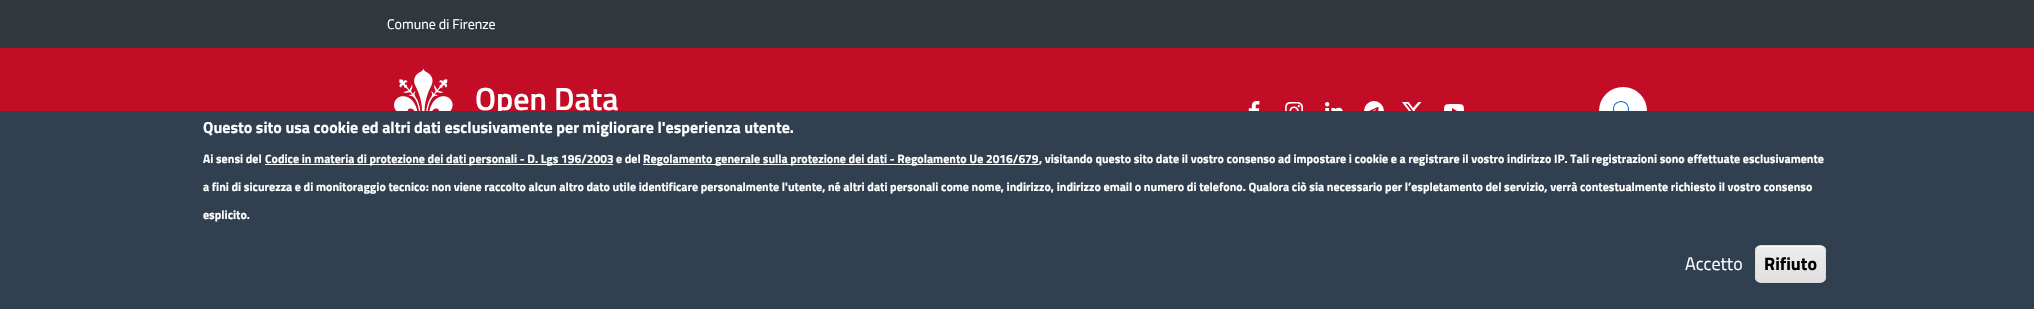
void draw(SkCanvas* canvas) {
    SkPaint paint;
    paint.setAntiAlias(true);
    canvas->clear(0xFF30373D);
    SkFont font1(fontMgr->matchFamilyStyle("Titillium Web", SkFontStyle::Normal()), 14);
    font1.setSubpixel(true);
    paint.setColor(0xFFFFFFFF);
    canvas->drawString("Comune di Firenze", 387, 29, font1, paint);
    paint.setColor(0xFFC30C26);
    canvas->drawRect(SkRect::MakeXYWH(0, 48, 2034, 63), paint);
    canvas->drawImageRect(SkImages::DeferredFromEncodedData(SkData::MakeFromFileName("img1.png")), SkRect::MakeXYWH(394, 68, 59, 43), SkSamplingOptions());
    SkFont font2(fontMgr->matchFamilyStyle("Titillium Web", SkFontStyle(600, SkFontStyle::kNormal_Width, SkFontStyle::kUpright_Slant)), 32);
    font2.setSubpixel(true);
    paint.setColor(0xFFFFFFFF);
    canvas->drawString("Open Data", 475, 110, font2, paint);
    canvas->drawImageRect(SkImages::DeferredFromEncodedData(SkData::MakeFromFileName("img2.png")), SkRect::MakeXYWH(1248, 101, 12, 10), SkSamplingOptions());
    canvas->drawImageRect(SkImages::DeferredFromEncodedData(SkData::MakeFromFileName("img3.png")), SkRect::MakeXYWH(1285, 102, 18, 9), SkSamplingOptions());
    canvas->drawImageRect(SkImages::DeferredFromEncodedData(SkData::MakeFromFileName("img4.png")), SkRect::MakeXYWH(1325, 102, 18, 9), SkSamplingOptions());
    canvas->drawImageRect(SkImages::DeferredFromEncodedData(SkData::MakeFromFileName("img5.png")), SkRect::MakeXYWH(1364, 101, 20, 10), SkSamplingOptions());
    canvas->drawImageRect(SkImages::DeferredFromEncodedData(SkData::MakeFromFileName("img6.png")), SkRect::MakeXYWH(1402, 102, 20, 9), SkSamplingOptions());
    canvas->drawImageRect(SkImages::DeferredFromEncodedData(SkData::MakeFromFileName("img7.png")), SkRect::MakeXYWH(1444, 104, 20, 7), SkSamplingOptions());
    canvas->drawCircle(1623, 111, 24, paint);
    canvas->drawImageRect(SkImages::DeferredFromEncodedData(SkData::MakeFromFileName("img8.png")), SkRect::MakeXYWH(1613, 101, 16, 10), SkSamplingOptions());
    paint.setColor(0xFF304050);
    canvas->drawRect(SkRect::MakeXYWH(0, 111, 2034, 198), paint);
    SkFont font3(fontMgr->matchFamilyStyle("Titillium Web", SkFontStyle::Bold()), 16);
    font3.setSubpixel(true);
    paint.setColor(0xFFFFFFFF);
    canvas->drawString("Questo sito usa cookie ed altri dati esclusivamente per migliorare l'esperienza utente.", 203, 133, font3, paint);
    SkFont font4(fontMgr->matchFamilyStyle("Titillium Web", SkFontStyle::Bold()), 12);
    font4.setSubpixel(true);
    canvas->drawString("Ai sensi del", 203, 163, font4, paint);
    canvas->drawRect(SkRect::MakeXYWH(265, 164, 348, 1), paint);
    canvas->drawString("Codice in materia di protezione dei dati personali - D. Lgs 196/2003", 265, 163, font4, paint);
    canvas->drawString("e del", 616, 163, font4, paint);
    canvas->drawRect(SkRect::MakeXYWH(643, 164, 396, 1), paint);
    canvas->drawString("Regolamento generale sulla protezione dei dati - Regolamento Ue 2016/679", 643, 163, font4, paint);
    canvas->drawString(", visitando questo sito date il vostro consenso ad impostare i cookie e a registrare il vostro indirizzo IP. Tali registrazioni sono effettuate esclusivamente", 1039, 163, font4, paint);
    canvas->drawString("a fini di sicurezza e di monitoraggio tecnico: non viene raccolto alcun altro dato utile identificare personalmente l'utente, né altri dati personali come nome, indirizzo, indirizzo email o numero di telefono. Qualora ciò sia necessario per l’espletamento del servizio, verrà contestualmente richiesto il vostro consenso", 203, 191, font4, paint);
    canvas->drawString("esplicito.", 203, 219, font4, paint);
    SkFont font5(fontMgr->matchFamilyStyle("Titillium Web", SkFontStyle::Normal()), 18);
    font5.setSubpixel(true);
    canvas->drawString("Accetto", 1685, 270, font5, paint);
    canvas->save();
    canvas->clipPath(SkPathBuilder().moveTo(1761, 245).lineTo(1820, 245).cubicTo(1823.5f, 245, 1826, 247.5f, 1826, 251).lineTo(1826, 277).cubicTo(1826, 280.5f, 1823.5f, 283, 1820, 283).lineTo(1761, 283).cubicTo(1757.5f, 283, 1755, 280.5f, 1755, 277).lineTo(1755, 251).cubicTo(1755, 247.5f, 1757.5f, 245, 1761, 245).close().detach(), true);
    {
        const SkColor colors[] = {0xFFEDEDED, 0xFFDFDFDF};
        const float stops[] = {0.05f, 1};
        const SkPoint ends[] = {{1791, 246}, {1791, 282}};
        paint.setShader(SkGradientShader::MakeLinear(ends, colors, stops, 2, SkTileMode::kClamp));
        paint.setAlpha(255);
    }
    canvas->drawRect(SkRect::MakeXYWH(1755, 246, 71, 36), paint);
    canvas->restore();
    paint.setShader(nullptr);
    paint.setColor(0xFFFFFFFF);
    canvas->drawPath(SkPathBuilder().moveTo(1761, 247).lineTo(1820, 247).cubicTo(1823, 247, 1825, 249, 1825, 252).cubicTo(1825, 244, 1816, 246, 1810, 246).lineTo(1771, 246).cubicTo(1765, 246, 1756, 244, 1756, 252).cubicTo(1756, 249, 1758, 247, 1761, 247).close().detach(), paint);
    paint.setStyle(SkPaint::kStroke_Style);
    paint.setStrokeWidth(1);
    paint.setColor(0xFFDCDCDC);
    canvas->drawRoundRect(SkRect::MakeXYWH(1755.5f, 245.5f, 70, 37), 5.5f, 5.5f, paint);
    SkFont font6(fontMgr->matchFamilyStyle("Titillium Web", SkFontStyle::Bold()), 18);
    font6.setSubpixel(true);
    paint.setStyle(SkPaint::kFill_Style);
    paint.setColor(0xFF000000);
    canvas->drawString("Rifiuto", 1764, 270, font6, paint);
}
